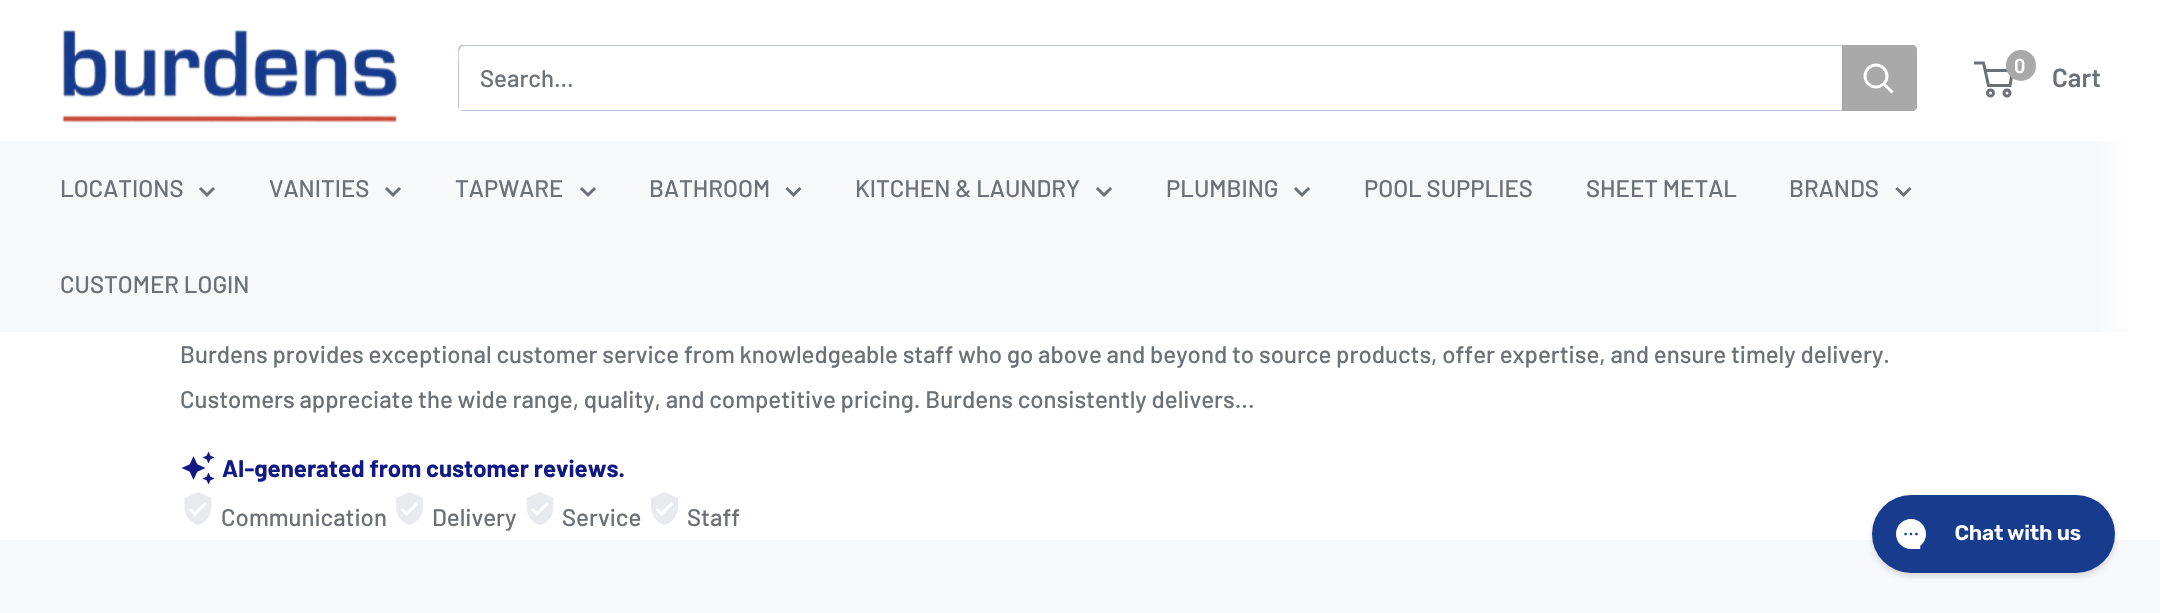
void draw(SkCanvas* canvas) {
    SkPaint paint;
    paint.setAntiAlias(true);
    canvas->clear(0xFFFFFFFF);
    canvas->drawImageRect(SkImages::DeferredFromEncodedData(SkData::MakeFromFileName("img1.png")), SkRect::MakeXYWH(62, 30, 335, 93), SkSamplingOptions());
    paint.setColor(0xFFBCC0D8);
    canvas->drawPath(SkPathBuilder().moveTo(460, 110).cubicTo(461, 111, 462, 111, 463, 111).lineTo(1912, 111).cubicTo(1915, 111, 1917, 109, 1917, 106).lineTo(1917, 50).cubicTo(1917, 48, 1916, 47, 1915, 46).lineTo(1916, 48).lineTo(1916, 105).cubicTo(1916, 107, 1913, 110, 1911, 110).close().detach(), paint);
    canvas->drawPath(SkPathBuilder().moveTo(464, 46).lineTo(1914, 46).lineTo(1916, 47).cubicTo(1915, 46, 1914, 45, 1912, 45).lineTo(463, 45).cubicTo(460, 45, 458, 47, 458, 50).lineTo(458, 106).cubicTo(458, 107, 458, 108, 459, 109).lineTo(459, 60).cubicTo(459, 57, 457, 46, 464, 46).close().detach(), paint);
    SkFont font1(fontMgr->matchFamilyStyle("Barlow", SkFontStyle(500, SkFontStyle::kNormal_Width, SkFontStyle::kUpright_Slant)), 24);
    font1.setSubpixel(true);
    paint.setColor(0xFF6B7177);
    canvas->drawString("Search...", 480, 87, font1, paint);
    paint.setColor(0xFFA9A9AA);
    canvas->drawPath(SkPathBuilder().moveTo(1842, 45).lineTo(1912, 45).cubicTo(1915, 45, 1917, 47, 1917, 50).lineTo(1917, 106).cubicTo(1917, 109, 1915, 111, 1912, 111).lineTo(1842, 111).close().detach(), paint);
    paint.setStyle(SkPaint::kStroke_Style);
    paint.setStrokeWidth(3);
    paint.setStrokeCap(SkPaint::kSquare_Cap);
    paint.setColor(0xFFFFFFFF);
    canvas->drawPath(SkPathBuilder().moveTo(1891.5f, 91.5f).lineTo(1884, 84).detach(), paint);
    paint.setStrokeCap(SkPaint::kButt_Cap);
    canvas->drawCircle(1876, 76, 11, paint);
    paint.setColor(0xFF6B7177);
    canvas->drawCircle(1990.5f, 93, 3, paint);
    canvas->drawCircle(2007, 93, 3, paint);
    canvas->drawPath(SkPathBuilder().moveTo(1985, 70.5f).lineTo(2012.5f, 70.5f).lineTo(2010, 85.5f).lineTo(1988.5f, 85.5f).lineTo(1983.5f, 63).lineTo(1974, 63).detach(), paint);
    paint.setStyle(SkPaint::kFill_Style);
    paint.setColor(0xFFA9A9AA);
    canvas->drawRoundRect(SkRect::MakeXYWH(2006, 50, 30, 31), 15, 15, paint);
    SkFont font2(fontMgr->matchFamilyStyle("Barlow", SkFontStyle(600, SkFontStyle::kNormal_Width, SkFontStyle::kUpright_Slant)), 20);
    font2.setSubpixel(true);
    paint.setColor(0xFFFFFFFF);
    canvas->drawString("0", 2014, 73, font2, paint);
    SkFont font3(fontMgr->matchFamilyStyle("Barlow", SkFontStyle(600, SkFontStyle::kNormal_Width, SkFontStyle::kUpright_Slant)), 26);
    font3.setSubpixel(true);
    paint.setColor(0xFF6B7177);
    canvas->drawString("Cart", 2052, 87, font3, paint);
    paint.setColor(0xFFF7F8F9);
    canvas->drawRect(SkRect::MakeXYWH(0, 141, 2100, 191), paint);
    paint.setColor(0xFF6B7177);
    canvas->drawString("LOCATIONS", 60, 197, font1, paint);
    paint.setStyle(SkPaint::kStroke_Style);
    paint.setStrokeCap(SkPaint::kSquare_Cap);
    canvas->drawPath(SkPathBuilder().moveTo(213, 189).lineTo(207, 195).lineTo(201, 189).detach(), paint);
    paint.setStyle(SkPaint::kFill_Style);
    canvas->drawString("VANITIES", 269, 197, font1, paint);
    paint.setStyle(SkPaint::kStroke_Style);
    canvas->drawPath(SkPathBuilder().moveTo(399, 189).lineTo(393, 195).lineTo(387, 189).detach(), paint);
    paint.setStyle(SkPaint::kFill_Style);
    canvas->drawString("TAPWARE", 455, 197, font1, paint);
    paint.setStyle(SkPaint::kStroke_Style);
    canvas->drawPath(SkPathBuilder().moveTo(594, 189).lineTo(588, 195).lineTo(582, 189).detach(), paint);
    paint.setStyle(SkPaint::kFill_Style);
    canvas->drawString("BATHROOM", 649, 197, font1, paint);
    paint.setStyle(SkPaint::kStroke_Style);
    canvas->drawPath(SkPathBuilder().moveTo(799.5f, 189).lineTo(793.5f, 195).lineTo(787.5f, 189).detach(), paint);
    paint.setStyle(SkPaint::kFill_Style);
    canvas->drawString("KITCHEN & LAUNDRY", 855, 197, font1, paint);
    paint.setStyle(SkPaint::kStroke_Style);
    canvas->drawPath(SkPathBuilder().moveTo(1110, 189).lineTo(1104, 195).lineTo(1098, 189).detach(), paint);
    paint.setStyle(SkPaint::kFill_Style);
    canvas->drawString("PLUMBING", 1166, 197, font1, paint);
    paint.setStyle(SkPaint::kStroke_Style);
    canvas->drawPath(SkPathBuilder().moveTo(1308, 189).lineTo(1302, 195).lineTo(1296, 189).detach(), paint);
    paint.setStyle(SkPaint::kFill_Style);
    canvas->drawString("POOL SUPPLIES", 1364, 197, font1, paint);
    canvas->drawString("SHEET METAL", 1586, 197, font1, paint);
    canvas->drawString("BRANDS", 1789, 197, font1, paint);
    paint.setStyle(SkPaint::kStroke_Style);
    canvas->drawPath(SkPathBuilder().moveTo(1909.5f, 189).lineTo(1903.5f, 195).lineTo(1897.5f, 189).detach(), paint);
    paint.setStyle(SkPaint::kFill_Style);
    canvas->drawString("CUSTOMER LOGIN", 60, 293, font1, paint);
    {
        const SkColor colors[] = {0xFFF8F9FA, 0xFFFCFCFD, 0xFFFFFFFF};
        const float stops[] = {0, 0.35f, 1};
        const SkPoint ends[] = {{2100, 236}, {2160, 236}};
        paint.setShader(SkGradientShader::MakeLinear(ends, colors, stops, 3, SkTileMode::kClamp));
        paint.setAlpha(255);
    }
    canvas->drawRect(SkRect::MakeXYWH(2100, 141, 28, 191), paint);
    paint.setShader(nullptr);
    paint.setColor(0xFF6B7177);
    canvas->drawString("Burdens provides exceptional customer service from knowledgeable staff who go above and beyond to source products, offer expertise, and ensure timely delivery.", 180, 363, font1, paint);
    canvas->drawString("Customers appreciate the wide range, quality, and competitive pricing. Burdens consistently delivers...", 180, 408, font1, paint);
    canvas->drawImageRect(SkImages::DeferredFromEncodedData(SkData::MakeFromFileName("img2.png")), SkRect::MakeXYWH(181, 451, 34, 34), SkSamplingOptions());
    SkFont font4(fontMgr->matchFamilyStyle("Barlow", SkFontStyle::Bold()), 24);
    font4.setSubpixel(true);
    paint.setColor(0xFF101984);
    canvas->drawString("AI-generated from customer reviews.", 222, 477, font4, paint);
    canvas->drawImageRect(SkImages::DeferredFromEncodedData(SkData::MakeFromFileName("img3.png")), SkRect::MakeXYWH(184, 492, 28, 33), SkSamplingOptions());
    paint.setColor(0xFF6B7177);
    canvas->drawString("Communication", 221, 526, font1, paint);
    canvas->drawImageRect(SkImages::DeferredFromEncodedData(SkData::MakeFromFileName("img4.png")), SkRect::MakeXYWH(396, 492, 27, 33), SkSamplingOptions());
    canvas->drawString("Delivery", 432, 526, font1, paint);
    canvas->drawImageRect(SkImages::DeferredFromEncodedData(SkData::MakeFromFileName("img3.png")), SkRect::MakeXYWH(526, 492, 28, 33), SkSamplingOptions());
    canvas->drawString("Service", 562, 526, font1, paint);
    canvas->drawImageRect(SkImages::DeferredFromEncodedData(SkData::MakeFromFileName("img4.png")), SkRect::MakeXYWH(651, 492, 27, 33), SkSamplingOptions());
    canvas->drawString("Staff", 687, 526, font1, paint);
    paint.setColor(0xFFF7F8F9);
    canvas->drawRect(SkRect::MakeXYWH(0, 540, 2160, 73), paint);
    canvas->drawImageRect(SkImages::DeferredFromEncodedData(SkData::MakeFromFileName("img5.png")), SkRect::MakeXYWH(1869, 495, 249, 84), SkSamplingOptions());
}
